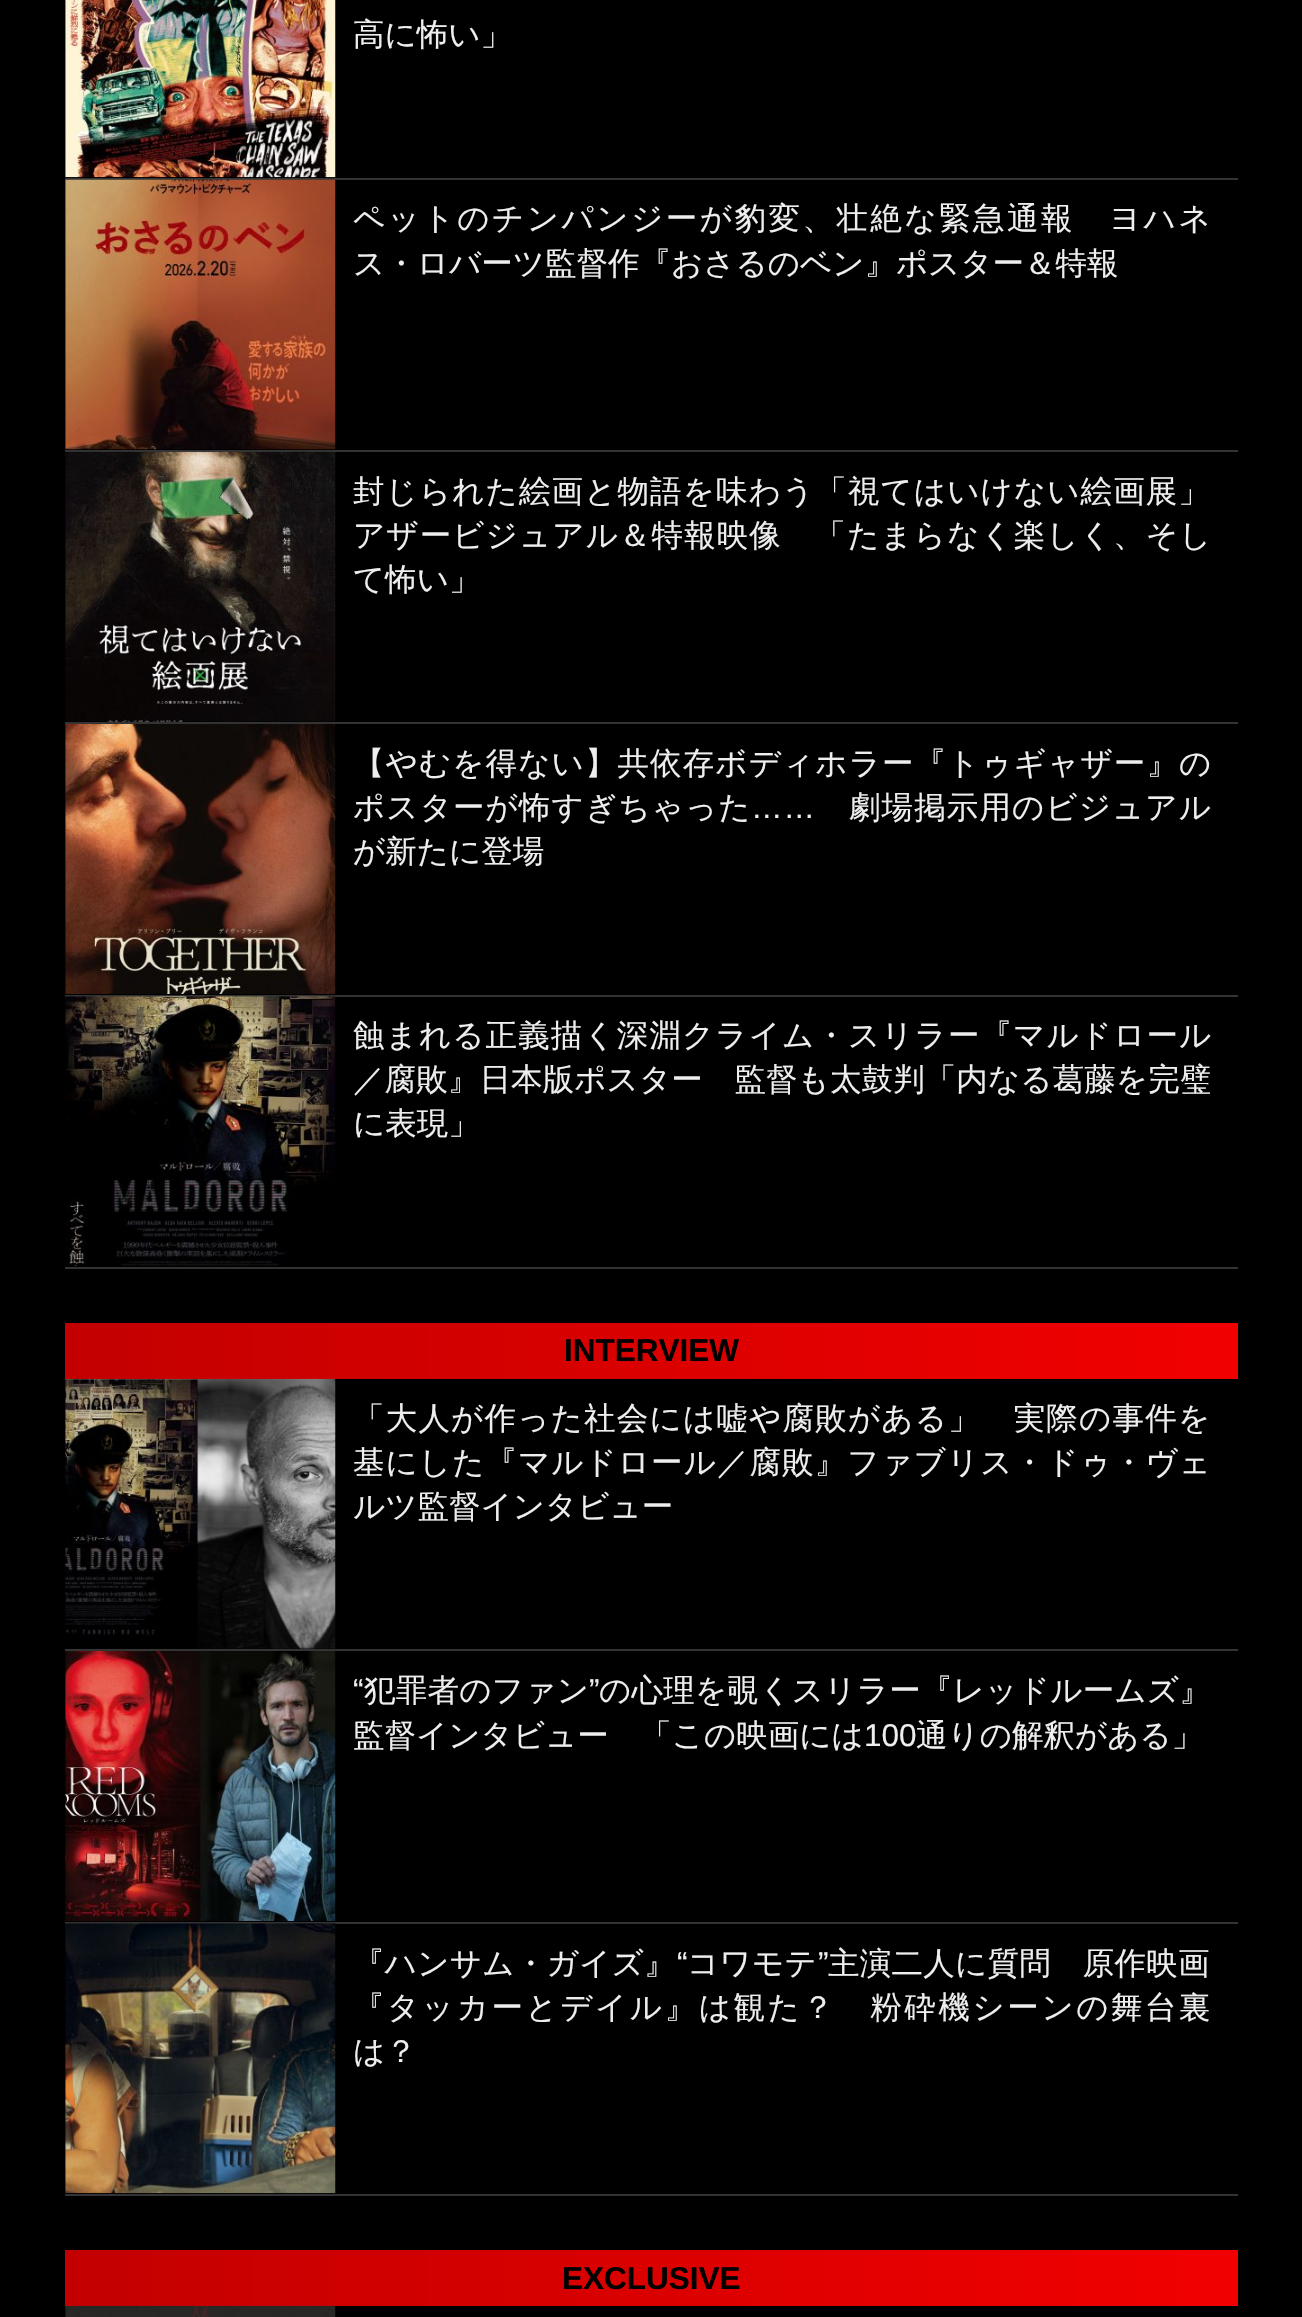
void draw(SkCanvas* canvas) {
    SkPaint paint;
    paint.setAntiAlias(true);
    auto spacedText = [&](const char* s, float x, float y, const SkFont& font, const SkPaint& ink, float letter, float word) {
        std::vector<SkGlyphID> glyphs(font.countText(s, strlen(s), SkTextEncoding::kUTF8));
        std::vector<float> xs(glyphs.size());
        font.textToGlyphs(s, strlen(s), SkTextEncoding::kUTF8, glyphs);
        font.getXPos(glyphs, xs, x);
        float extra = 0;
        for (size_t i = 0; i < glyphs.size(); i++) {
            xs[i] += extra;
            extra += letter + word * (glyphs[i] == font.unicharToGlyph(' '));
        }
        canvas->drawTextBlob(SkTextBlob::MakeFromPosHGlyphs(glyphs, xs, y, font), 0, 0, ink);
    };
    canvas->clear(0xFF000000);
    paint.setColor(0xFF333333);
    canvas->drawRect(SkRect::MakeXYWH(65, 178, 1173, 2), paint);
    canvas->drawImageRect(SkImages::DeferredFromEncodedData(SkData::MakeFromFileName("img1.png")), SkRect::MakeXYWH(65, 0, 271, 178), SkSamplingOptions());
    SkFont font1(fontMgr->matchFamilyStyle("WenQuanYi Zen Hei", SkFontStyle(500, SkFontStyle::kNormal_Width, SkFontStyle::kUpright_Slant)), 31.5f);
    font1.setSubpixel(true);
    paint.setColor(0xFFEEEEEE);
    canvas->drawString("高に怖い」", 353, 45, font1, paint);
    paint.setColor(0xFF333333);
    canvas->drawRect(SkRect::MakeXYWH(65, 450, 1173, 2), paint);
    canvas->drawImageRect(SkImages::DeferredFromEncodedData(SkData::MakeFromFileName("img2.png")), SkRect::MakeXYWH(65, 179, 271, 271), SkSamplingOptions());
    paint.setColor(0xFFEEEEEE);
    spacedText("ペットのチンパンジーが豹変、壮絶な緊急通報　ヨハネ", 353, 229, font1, paint, 2.5f, 0);
    canvas->drawString("ス・ロバーツ監督作『おさるのベン』ポスター＆特報", 353, 274, font1, paint);
    paint.setColor(0xFF333333);
    canvas->drawRect(SkRect::MakeXYWH(65, 722, 1173, 2), paint);
    canvas->drawImageRect(SkImages::DeferredFromEncodedData(SkData::MakeFromFileName("img3.png")), SkRect::MakeXYWH(65, 451, 271, 271), SkSamplingOptions());
    paint.setColor(0xFFEEEEEE);
    spacedText("封じられた絵画と物語を味わう「視てはいけない絵画展」", 353, 502, font1, paint, 1.1f, 0);
    spacedText("アザービジュアル＆特報映像　「たまらなく楽しく、そし", 353, 546, font1, paint, 1.1f, 0);
    canvas->drawString("て怖い」", 353, 590, font1, paint);
    paint.setColor(0xFF333333);
    canvas->drawRect(SkRect::MakeXYWH(65, 995, 1173, 2), paint);
    canvas->drawImageRect(SkImages::DeferredFromEncodedData(SkData::MakeFromFileName("img4.png")), SkRect::MakeXYWH(65, 724, 271, 270), SkSamplingOptions());
    paint.setColor(0xFFEEEEEE);
    spacedText("【やむを得ない】共依存ボディホラー『トゥギャザー』の", 353, 774, font1, paint, 1.1f, 0);
    spacedText("ポスターが怖すぎちゃった", 353, 818, font1, paint, 1.1f, 0);
    SkFont font2(fontMgr->matchFamilyStyle("Liberation Sans", SkFontStyle::Normal()), 31.5f);
    font2.setSubpixel(true);
    spacedText("……", 751, 818, font2, paint, 1.1f, 0);
    spacedText("劇場掲示用のビジュアル", 849, 818, font1, paint, 1.1f, 0);
    canvas->drawString("が新たに登場", 353, 862, font1, paint);
    paint.setColor(0xFF333333);
    canvas->drawRect(SkRect::MakeXYWH(65, 1267, 1173, 2), paint);
    canvas->drawImageRect(SkImages::DeferredFromEncodedData(SkData::MakeFromFileName("img5.png")), SkRect::MakeXYWH(65, 996, 271, 271), SkSamplingOptions());
    paint.setColor(0xFFEEEEEE);
    spacedText("蝕まれる正義描く深淵クライム・スリラー『マルドロール", 353, 1046, font1, paint, 1.1f, 0);
    spacedText("／腐敗』日本版ポスター　監督も太鼓判「内なる葛藤を完璧", 353, 1090, font1, paint, 0.1f, 0);
    canvas->drawString("に表現」", 353, 1134, font1, paint);
    {
        const SkColor colors[] = {0xFFC30000, 0xFFF20000};
        const float stops[] = {0, 1};
        const SkPoint ends[] = {{65, 1351}, {1238, 1351}};
        paint.setShader(SkGradientShader::MakeLinear(ends, colors, stops, 2, SkTileMode::kClamp));
        paint.setAlpha(255);
    }
    canvas->drawRect(SkRect::MakeXYWH(65, 1323, 1173, 56), paint);
    SkFont font3(fontMgr->matchFamilyStyle("Liberation Sans", SkFontStyle::Bold()), 31.5f);
    font3.setSubpixel(true);
    paint.setShader(nullptr);
    paint.setColor(0xFF000000);
    canvas->drawString("INTERVIEW", 564, 1361, font3, paint);
    paint.setColor(0xFF333333);
    canvas->drawRect(SkRect::MakeXYWH(65, 1649, 1173, 2), paint);
    canvas->drawImageRect(SkImages::DeferredFromEncodedData(SkData::MakeFromFileName("img6.png")), SkRect::MakeXYWH(65, 1378, 271, 271), SkSamplingOptions());
    paint.setColor(0xFFEEEEEE);
    spacedText("「大人が作った社会には嘘や腐敗がある」　実際の事件を", 353, 1429, font1, paint, 1.2f, 0);
    spacedText("基にした『マルドロール／腐敗』ファブリス・ドゥ・ヴェ", 353, 1473, font1, paint, 1.05f, 0);
    canvas->drawString("ルツ監督インタビュー", 353, 1517, font1, paint);
    paint.setColor(0xFF333333);
    canvas->drawRect(SkRect::MakeXYWH(65, 1922, 1173, 2), paint);
    canvas->drawImageRect(SkImages::DeferredFromEncodedData(SkData::MakeFromFileName("img7.png")), SkRect::MakeXYWH(65, 1651, 271, 270), SkSamplingOptions());
    paint.setColor(0xFFEEEEEE);
    spacedText("“", 353, 1701, font2, paint, 0.25f, 0);
    spacedText("犯罪者のファン", 364, 1701, font1, paint, 0.25f, 0);
    spacedText("”", 589, 1701, font2, paint, 0.25f, 0);
    spacedText("の心理を覗くスリラー『レッドルームズ』", 599, 1701, font1, paint, 0.25f, 0);
    canvas->drawString("監督インタビュー　「この映画には", 353, 1746, font1, paint);
    canvas->drawString("100", 864, 1746, font2, paint);
    canvas->drawString("通りの解釈がある」", 916, 1746, font1, paint);
    paint.setColor(0xFF333333);
    canvas->drawRect(SkRect::MakeXYWH(65, 2194, 1173, 2), paint);
    canvas->drawImageRect(SkImages::DeferredFromEncodedData(SkData::MakeFromFileName("img8.png")), SkRect::MakeXYWH(65, 1923, 271, 271), SkSamplingOptions());
    paint.setColor(0xFFEEEEEE);
    spacedText("『ハンサム・ガイズ』", 353, 1974, font1, paint, 0.25f, 0);
    spacedText("“", 677, 1974, font2, paint, 0.25f, 0);
    spacedText("コワモテ", 687, 1974, font1, paint, 0.25f, 0);
    spacedText("”", 818, 1974, font2, paint, 0.25f, 0);
    spacedText("主演二人に質問　原作映画", 828, 1974, font1, paint, 0.25f, 0);
    spacedText("『タッカーとデイル』は観た？　粉砕機シーンの舞台裏", 353, 2018, font1, paint, 2.55f, 0);
    canvas->drawString("は？", 353, 2062, font1, paint);
    {
        const SkColor colors[] = {0xFFC30000, 0xFFF20000};
        const float stops[] = {0, 1};
        const SkPoint ends[] = {{65, 2278}, {1238, 2278}};
        paint.setShader(SkGradientShader::MakeLinear(ends, colors, stops, 2, SkTileMode::kClamp));
        paint.setAlpha(255);
    }
    canvas->drawRect(SkRect::MakeXYWH(65, 2250, 1173, 56), paint);
    paint.setShader(nullptr);
    paint.setColor(0xFF000000);
    canvas->drawString("EXCLUSIVE", 562, 2289, font3, paint);
    canvas->drawImageRect(SkImages::DeferredFromEncodedData(SkData::MakeFromFileName("img9.png")), SkRect::MakeXYWH(65, 2305, 271, 12), SkSamplingOptions());
}
